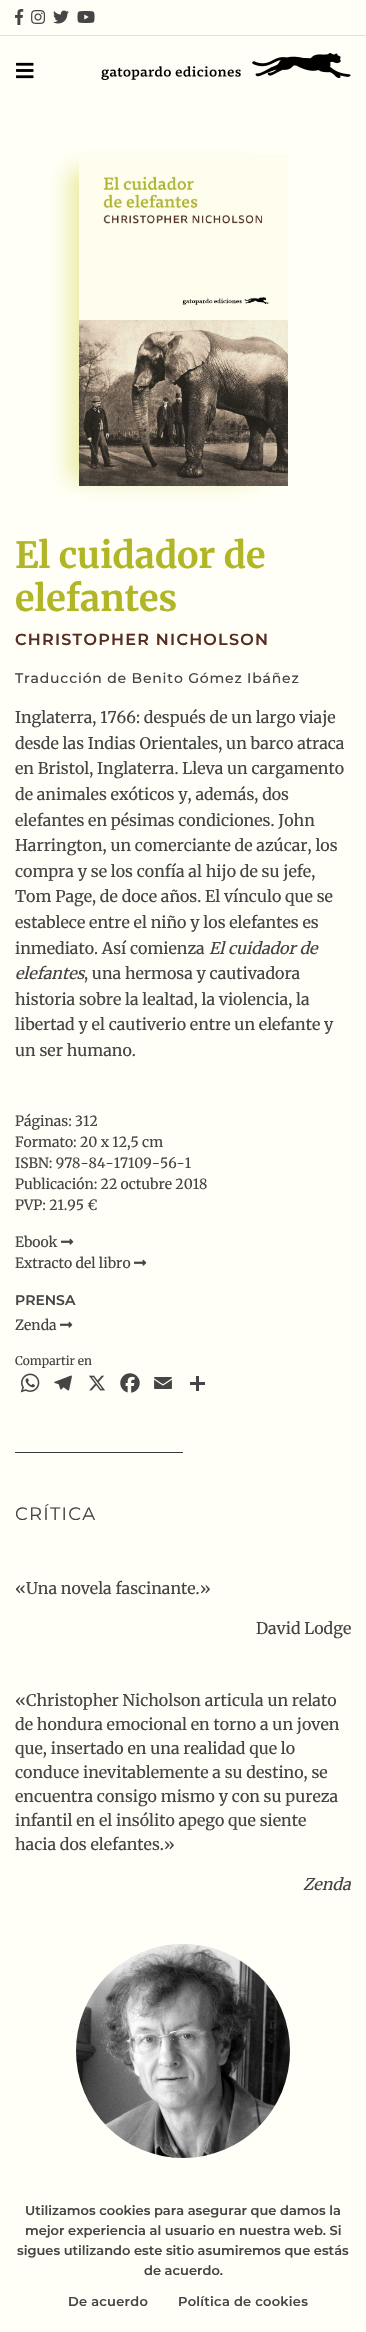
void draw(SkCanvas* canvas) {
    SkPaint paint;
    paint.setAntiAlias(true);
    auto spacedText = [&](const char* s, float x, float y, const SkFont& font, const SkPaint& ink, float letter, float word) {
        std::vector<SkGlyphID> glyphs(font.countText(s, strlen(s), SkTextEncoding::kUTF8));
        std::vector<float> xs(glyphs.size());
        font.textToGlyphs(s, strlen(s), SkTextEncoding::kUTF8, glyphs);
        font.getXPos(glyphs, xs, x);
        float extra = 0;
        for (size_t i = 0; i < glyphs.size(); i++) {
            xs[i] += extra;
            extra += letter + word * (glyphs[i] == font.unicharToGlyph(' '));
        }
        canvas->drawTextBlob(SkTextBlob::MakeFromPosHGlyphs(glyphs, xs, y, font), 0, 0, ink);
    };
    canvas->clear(0xFFFFFFF7);
    paint.setColor(0xFFDEE2E6);
    canvas->drawRect(SkRect::MakeXYWH(0, 35, 366, 1), paint);
    canvas->drawImageRect(SkImages::DeferredFromEncodedData(SkData::MakeFromFileName("img1.png")), SkRect::MakeXYWH(15, 9, 9, 16), SkSamplingOptions());
    canvas->drawImageRect(SkImages::DeferredFromEncodedData(SkData::MakeFromFileName("img2.png")), SkRect::MakeXYWH(31, 10, 15, 14), SkSamplingOptions());
    canvas->drawImageRect(SkImages::DeferredFromEncodedData(SkData::MakeFromFileName("img3.png")), SkRect::MakeXYWH(53, 10, 16, 14), SkSamplingOptions());
    canvas->drawImageRect(SkImages::DeferredFromEncodedData(SkData::MakeFromFileName("img4.png")), SkRect::MakeXYWH(77, 11, 18, 12), SkSamplingOptions());
    canvas->drawImageRect(SkImages::DeferredFromEncodedData(SkData::MakeFromFileName("img5.png")), SkRect::MakeXYWH(16, 62, 18, 17), SkSamplingOptions());
    canvas->drawImageRect(SkImages::DeferredFromEncodedData(SkData::MakeFromFileName("img6.png")), SkRect::MakeXYWH(101, 53, 250, 27), SkSamplingOptions());
    paint.setColor(0x99DEDF6D);
    paint.setMaskFilter(SkMaskFilter::MakeBlur(kNormal_SkBlurStyle, 10));
    canvas->drawRect(SkRect::MakeXYWH(69, 169, 189, 312), paint);
    paint.setMaskFilter(nullptr);
    canvas->drawImageRect(SkImages::DeferredFromEncodedData(SkData::MakeFromFileName("img7.png")), SkRect::MakeXYWH(79, 154, 209, 332), SkSamplingOptions());
    SkFont font1(fontMgr->matchFamilyStyle("Merriweather", SkFontStyle::Bold()), 36);
    font1.setSubpixel(true);
    paint.setColor(0xFFB1B626);
    canvas->drawString("El cuidador de", 15, 568, font1, paint);
    canvas->drawString("elefantes", 15, 611, font1, paint);
    SkFont font2(fontMgr->matchFamilyStyle("Montserrat", SkFontStyle(600, SkFontStyle::kNormal_Width, SkFontStyle::kUpright_Slant)), 16);
    font2.setSubpixel(true);
    paint.setColor(0xFF572D21);
    spacedText("CHRISTOPHER NICHOLSON", 15, 645, font2, paint, 1.25f, 0);
    SkFont font3(fontMgr->matchFamilyStyle("Montserrat", SkFontStyle(500, SkFontStyle::kNormal_Width, SkFontStyle::kUpright_Slant)), 14);
    font3.setSubpixel(true);
    paint.setColor(0xFF454545);
    spacedText("Traducción de Benito Gómez Ibáñez", 15, 683, font3, paint, 0.8f, 0);
    SkFont font4(fontMgr->matchFamilyStyle("Merriweather", SkFontStyle::Normal()), 16);
    font4.setSubpixel(true);
    canvas->drawString("Inglaterra, 1766: después de un largo viaje", 15, 723, font4, paint);
    canvas->drawString("desde las Indias Orientales, un barco atraca", 15, 749, font4, paint);
    canvas->drawString("en Bristol, Inglaterra. Lleva un cargamento", 15, 774, font4, paint);
    canvas->drawString("de animales exóticos y, además, dos", 15, 800, font4, paint);
    canvas->drawString("elefantes en pésimas condiciones. John", 15, 826, font4, paint);
    canvas->drawString("Harrington, un comerciante de azúcar, los", 15, 851, font4, paint);
    canvas->drawString("compra y se los confía al hijo de su jefe,", 15, 877, font4, paint);
    canvas->drawString("Tom Page, de doce años. El vínculo que se", 15, 902, font4, paint);
    canvas->drawString("establece entre el niño y los elefantes es", 15, 928, font4, paint);
    canvas->drawString("inmediato. Así comienza", 15, 954, font4, paint);
    SkFont font5(fontMgr->matchFamilyStyle("Merriweather", SkFontStyle::Italic()), 16);
    font5.setSubpixel(true);
    canvas->drawString("El cuidador de", 209, 954, font5, paint);
    canvas->drawString("elefantes", 15, 979, font5, paint);
    canvas->drawString(", una hermosa y cautivadora", 84, 979, font4, paint);
    canvas->drawString("historia sobre la lealtad, la violencia, la", 15, 1005, font4, paint);
    canvas->drawString("libertad y el cautiverio entre un elefante y", 15, 1030, font4, paint);
    canvas->drawString("un ser humano.", 15, 1056, font4, paint);
    SkFont font6(fontMgr->matchFamilyStyle("Merriweather", SkFontStyle::Normal()), 14);
    font6.setSubpixel(true);
    canvas->drawString("Páginas: 312", 15, 1126, font6, paint);
    canvas->drawString("Formato: 20 x 12,5 cm", 15, 1147, font6, paint);
    canvas->drawString("ISBN: 978-84-17109-56-1", 15, 1168, font6, paint);
    canvas->drawString("Publicación: 22 octubre 2018", 15, 1189, font6, paint);
    canvas->drawString("PVP: 21.95 €", 15, 1210, font6, paint);
    canvas->drawString("Ebook", 15, 1247, font6, paint);
    canvas->drawImageRect(SkImages::DeferredFromEncodedData(SkData::MakeFromFileName("img8.png")), SkRect::MakeXYWH(61, 1238, 13, 7), SkSamplingOptions());
    canvas->drawString("Extracto del libro", 15, 1268, font6, paint);
    canvas->drawImageRect(SkImages::DeferredFromEncodedData(SkData::MakeFromFileName("img8.png")), SkRect::MakeXYWH(134, 1259, 13, 7), SkSamplingOptions());
    SkFont font7(fontMgr->matchFamilyStyle("Montserrat", SkFontStyle(600, SkFontStyle::kNormal_Width, SkFontStyle::kUpright_Slant)), 14);
    font7.setSubpixel(true);
    canvas->drawString("PRENSA", 15, 1305, font7, paint);
    canvas->drawString("Zenda", 15, 1330, font6, paint);
    canvas->drawImageRect(SkImages::DeferredFromEncodedData(SkData::MakeFromFileName("img8.png")), SkRect::MakeXYWH(60, 1321, 13, 7), SkSamplingOptions());
    SkFont font8(fontMgr->matchFamilyStyle("Merriweather", SkFontStyle::Normal()), 12);
    font8.setSubpixel(true);
    canvas->drawString("Compartir en", 15, 1365, font8, paint);
    canvas->drawImageRect(SkImages::DeferredFromEncodedData(SkData::MakeFromFileName("img9.png")), SkRect::MakeXYWH(20, 1373, 20, 20), SkSamplingOptions());
    canvas->drawImageRect(SkImages::DeferredFromEncodedData(SkData::MakeFromFileName("img10.png")), SkRect::MakeXYWH(54, 1375, 18, 16), SkSamplingOptions());
    canvas->drawImageRect(SkImages::DeferredFromEncodedData(SkData::MakeFromFileName("img11.png")), SkRect::MakeXYWH(89, 1375, 16, 16), SkSamplingOptions());
    canvas->drawImageRect(SkImages::DeferredFromEncodedData(SkData::MakeFromFileName("img12.png")), SkRect::MakeXYWH(120, 1373, 20, 20), SkSamplingOptions());
    canvas->drawImageRect(SkImages::DeferredFromEncodedData(SkData::MakeFromFileName("img13.png")), SkRect::MakeXYWH(154, 1377, 18, 12), SkSamplingOptions());
    canvas->drawRect(SkRect::MakeXYWH(196, 1376, 3, 15), paint);
    canvas->drawRect(SkRect::MakeXYWH(190, 1382, 15, 3), paint);
    paint.setColor(0xFF343A40);
    canvas->drawRect(SkRect::MakeXYWH(15, 1452, 168, 1), paint);
    SkFont font9(fontMgr->matchFamilyStyle("Montserrat", SkFontStyle::Normal()), 18);
    font9.setSubpixel(true);
    paint.setColor(0xFF454545);
    spacedText("CRÍTICA", 15, 1520, font9, paint, 1.25f, 0);
    canvas->drawString("«Una novela fascinante.»", 15, 1594, font4, paint);
    canvas->drawString("David Lodge", 256, 1634, font4, paint);
    canvas->drawString("«Christopher Nicholson articula un relato", 15, 1706, font4, paint);
    canvas->drawString("de hondura emocional en torno a un joven", 15, 1730, font4, paint);
    canvas->drawString("que, insertado en una realidad que lo", 15, 1754, font4, paint);
    canvas->drawString("conduce inevitablemente a su destino, se", 15, 1778, font4, paint);
    canvas->drawString("encuentra consigo mismo y con su pureza", 15, 1802, font4, paint);
    canvas->drawString("infantil en el insólito apego que siente", 15, 1826, font4, paint);
    canvas->drawString("hacia dos elefantes.»", 15, 1850, font4, paint);
    canvas->drawString("Zenda", 303, 1890, font5, paint);
    paint.setColor(0xFFEFEFEF);
    canvas->drawCircle(183, 2051, 107, paint);
    canvas->drawImageRect(SkImages::DeferredFromEncodedData(SkData::MakeFromFileName("img14.png")), SkRect::MakeXYWH(76, 1944, 214, 214), SkSamplingOptions());
    SkFont font10(fontMgr->matchFamilyStyle("Montserrat", SkFontStyle(600, SkFontStyle::kNormal_Width, SkFontStyle::kUpright_Slant)), 13);
    font10.setSubpixel(true);
    paint.setColor(0xFF454545);
    canvas->drawString("Utilizamos cookies para asegurar que damos la", 25, 2215, font10, paint);
    canvas->drawString("mejor experiencia al usuario en nuestra web. Si", 25, 2235, font10, paint);
    canvas->drawString("sigues utilizando este sitio asumiremos que estás", 17, 2255, font10, paint);
    canvas->drawString("de acuerdo.", 144, 2275, font10, paint);
    spacedText("De acuerdo", 68, 2306, font10, paint, 0.25f, 0);
    spacedText("Política de cookies", 178, 2306, font10, paint, 0.25f, 0);
}
